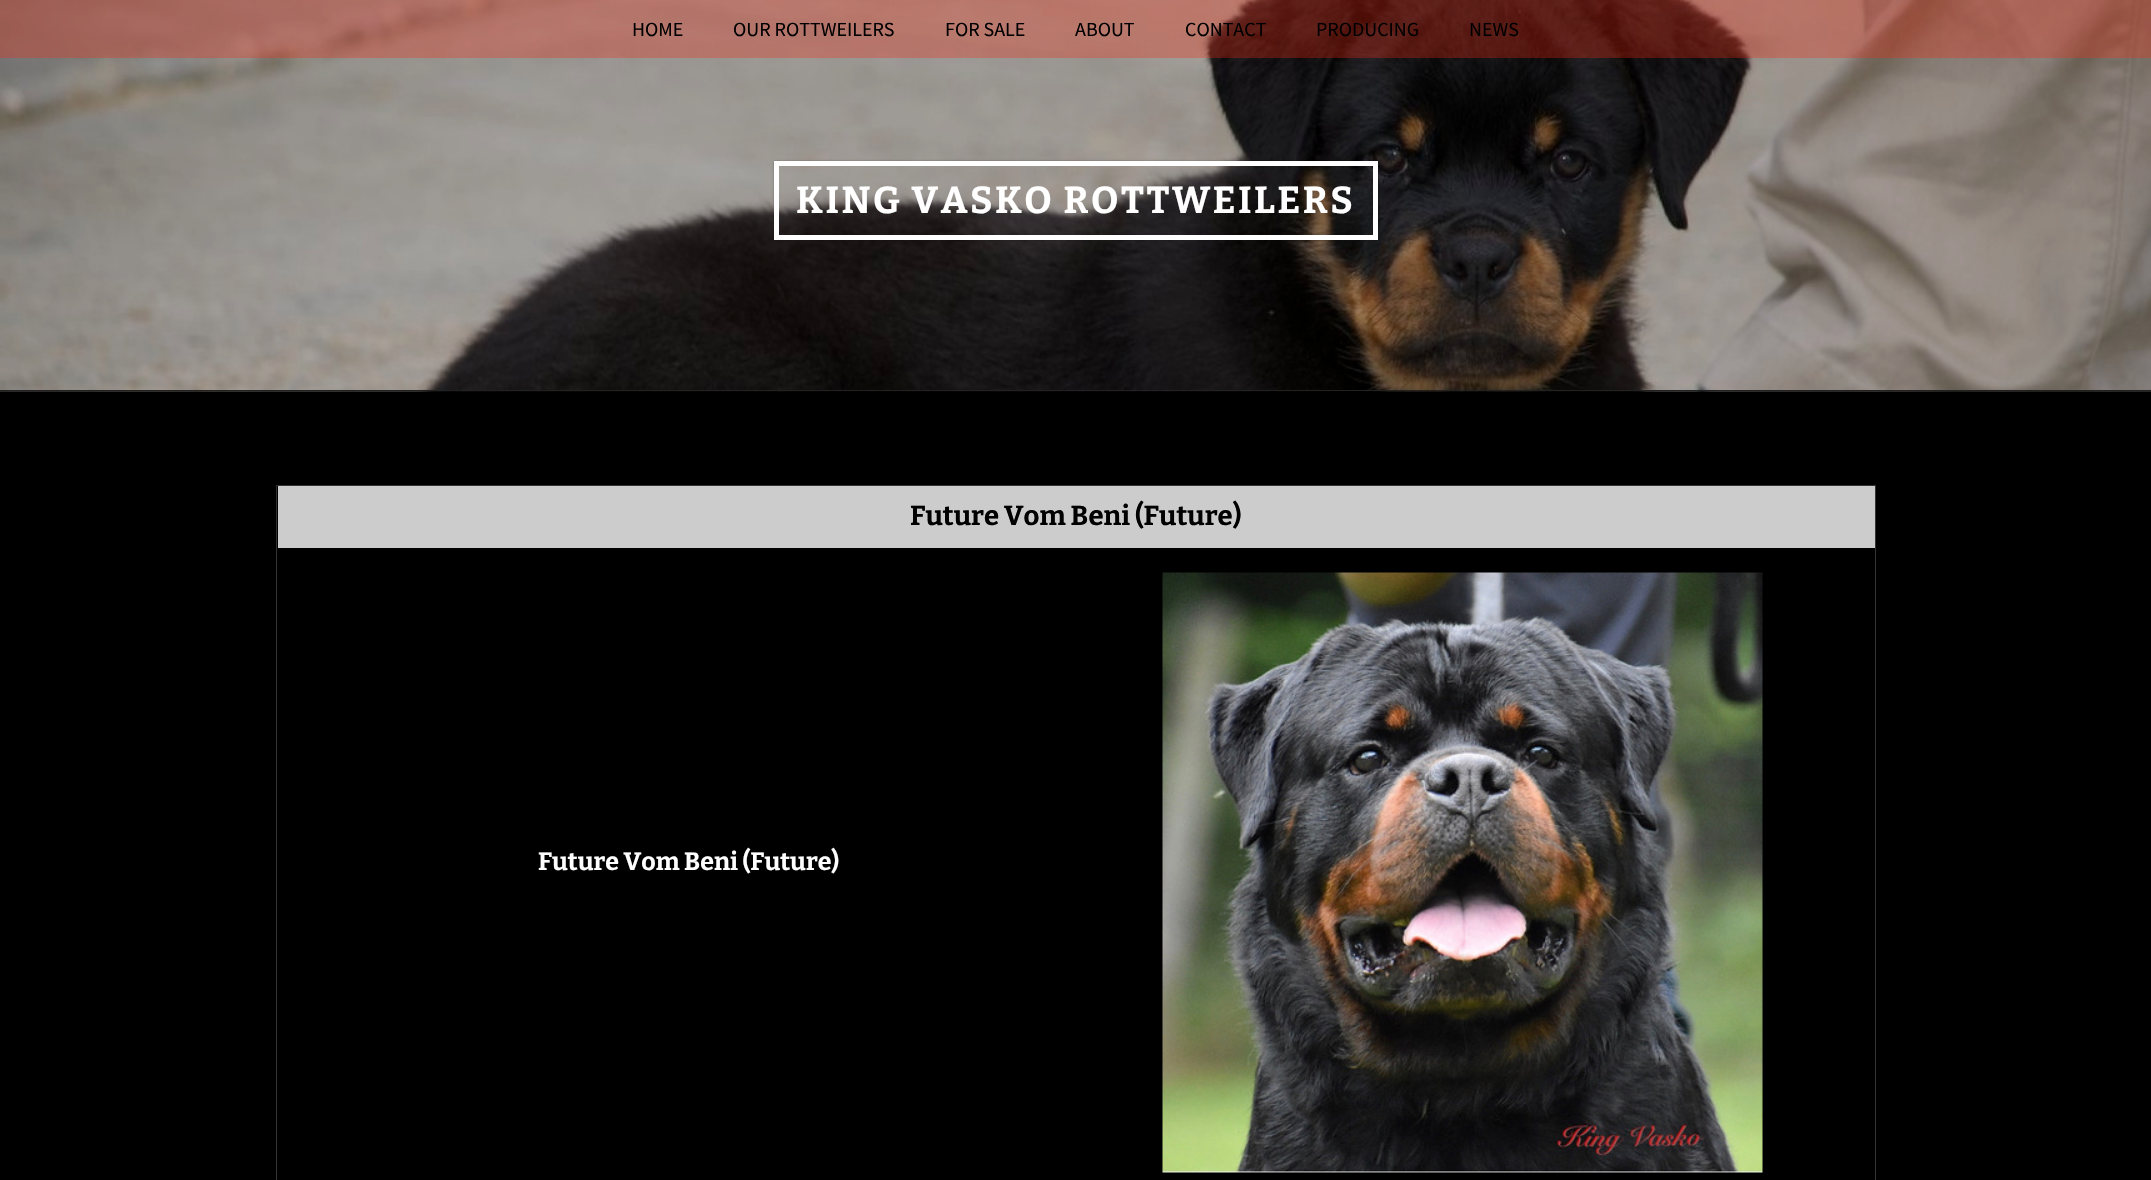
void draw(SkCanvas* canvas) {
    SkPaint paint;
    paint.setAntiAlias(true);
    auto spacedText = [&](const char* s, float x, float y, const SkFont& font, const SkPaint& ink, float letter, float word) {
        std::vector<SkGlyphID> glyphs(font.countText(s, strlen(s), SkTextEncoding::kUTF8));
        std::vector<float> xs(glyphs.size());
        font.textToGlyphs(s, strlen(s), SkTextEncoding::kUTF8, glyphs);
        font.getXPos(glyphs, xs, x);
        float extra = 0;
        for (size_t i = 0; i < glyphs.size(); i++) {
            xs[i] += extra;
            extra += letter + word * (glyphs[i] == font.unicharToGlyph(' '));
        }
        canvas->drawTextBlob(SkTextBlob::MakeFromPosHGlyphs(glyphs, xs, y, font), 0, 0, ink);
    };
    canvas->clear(0xFF000000);
    canvas->drawImageRect(SkImages::DeferredFromEncodedData(SkData::MakeFromFileName("img1.png")), SkRect::MakeXYWH(0, 0, 2151, 392), SkSamplingOptions());
    paint.setColor(0x4DF5280C);
    canvas->drawRect(SkRect::MakeXYWH(0, 0, 2151, 58), paint);
    SkFont font1(fontMgr->matchFamilyStyle("Source Sans Pro", SkFontStyle::Normal()), 20);
    font1.setSubpixel(true);
    paint.setColor(0xFF000000);
    canvas->drawString("HOME", 632, 36, font1, paint);
    canvas->drawString("OUR ROTTWEILERS", 733, 36, font1, paint);
    canvas->drawString("FOR SALE", 945, 36, font1, paint);
    canvas->drawString("ABOUT", 1075, 36, font1, paint);
    canvas->drawString("CONTACT", 1185, 36, font1, paint);
    canvas->drawString("PRODUCING", 1316, 36, font1, paint);
    canvas->drawString("NEWS", 1469, 36, font1, paint);
    paint.setColor(0xFF222222);
    canvas->drawRect(SkRect::MakeXYWH(0, 390, 2151, 1), paint);
    canvas->save();
    canvas->clipPath(SkPathBuilder(SkPathFillType::kEvenOdd).moveTo(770, 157).lineTo(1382, 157).lineTo(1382, 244).lineTo(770, 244).close().moveTo(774, 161).lineTo(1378, 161).lineTo(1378, 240).lineTo(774, 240).close().detach(), true);
    paint.setColor(0x4D000000);
    paint.setMaskFilter(SkMaskFilter::MakeBlur(kNormal_SkBlurStyle, 1));
    canvas->drawRect(SkRect::MakeXYWH(774, 161, 604, 79), paint);
    paint.setMaskFilter(nullptr);
    canvas->restore();
    paint.setStyle(SkPaint::kStroke_Style);
    paint.setStrokeWidth(5);
    paint.setColor(0xFFFFFFFF);
    canvas->drawRect(SkRect::MakeXYWH(776.5f, 163.5f, 599, 74), paint);
    SkFont font2(fontMgr->matchFamilyStyle("Bitter", SkFontStyle::Bold()), 37.5f);
    font2.setSubpixel(true);
    paint.setStyle(SkPaint::kFill_Style);
    spacedText("KING VASKO ROTTWEILERS", 796, 213, font2, paint, 2.5f, 0);
    paint.setStyle(SkPaint::kStroke_Style);
    paint.setStrokeWidth(1);
    paint.setColor(0xFF333333);
    canvas->drawRect(SkRect::MakeXYWH(276.5f, 485.5f, 1599, 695), paint);
    paint.setStyle(SkPaint::kFill_Style);
    paint.setColor(0xFFCCCCCC);
    canvas->drawRect(SkRect::MakeXYWH(278, 486, 1597, 62), paint);
    SkFont font3(fontMgr->matchFamilyStyle("Bitter", SkFontStyle::Bold()), 27.5f);
    font3.setSubpixel(true);
    paint.setColor(0xFF000000);
    canvas->drawString("Future Vom Beni (Future)", 910, 525, font3, paint);
    SkFont font4(fontMgr->matchFamilyStyle("Bitter", SkFontStyle::Bold()), 25);
    font4.setSubpixel(true);
    paint.setColor(0xFFFFFFFF);
    canvas->drawString("Future Vom Beni (Future)", 538, 870, font4, paint);
    canvas->drawImageRect(SkImages::DeferredFromEncodedData(SkData::MakeFromFileName("img2.png")), SkRect::MakeXYWH(1162, 572, 601, 601), SkSamplingOptions());
}
